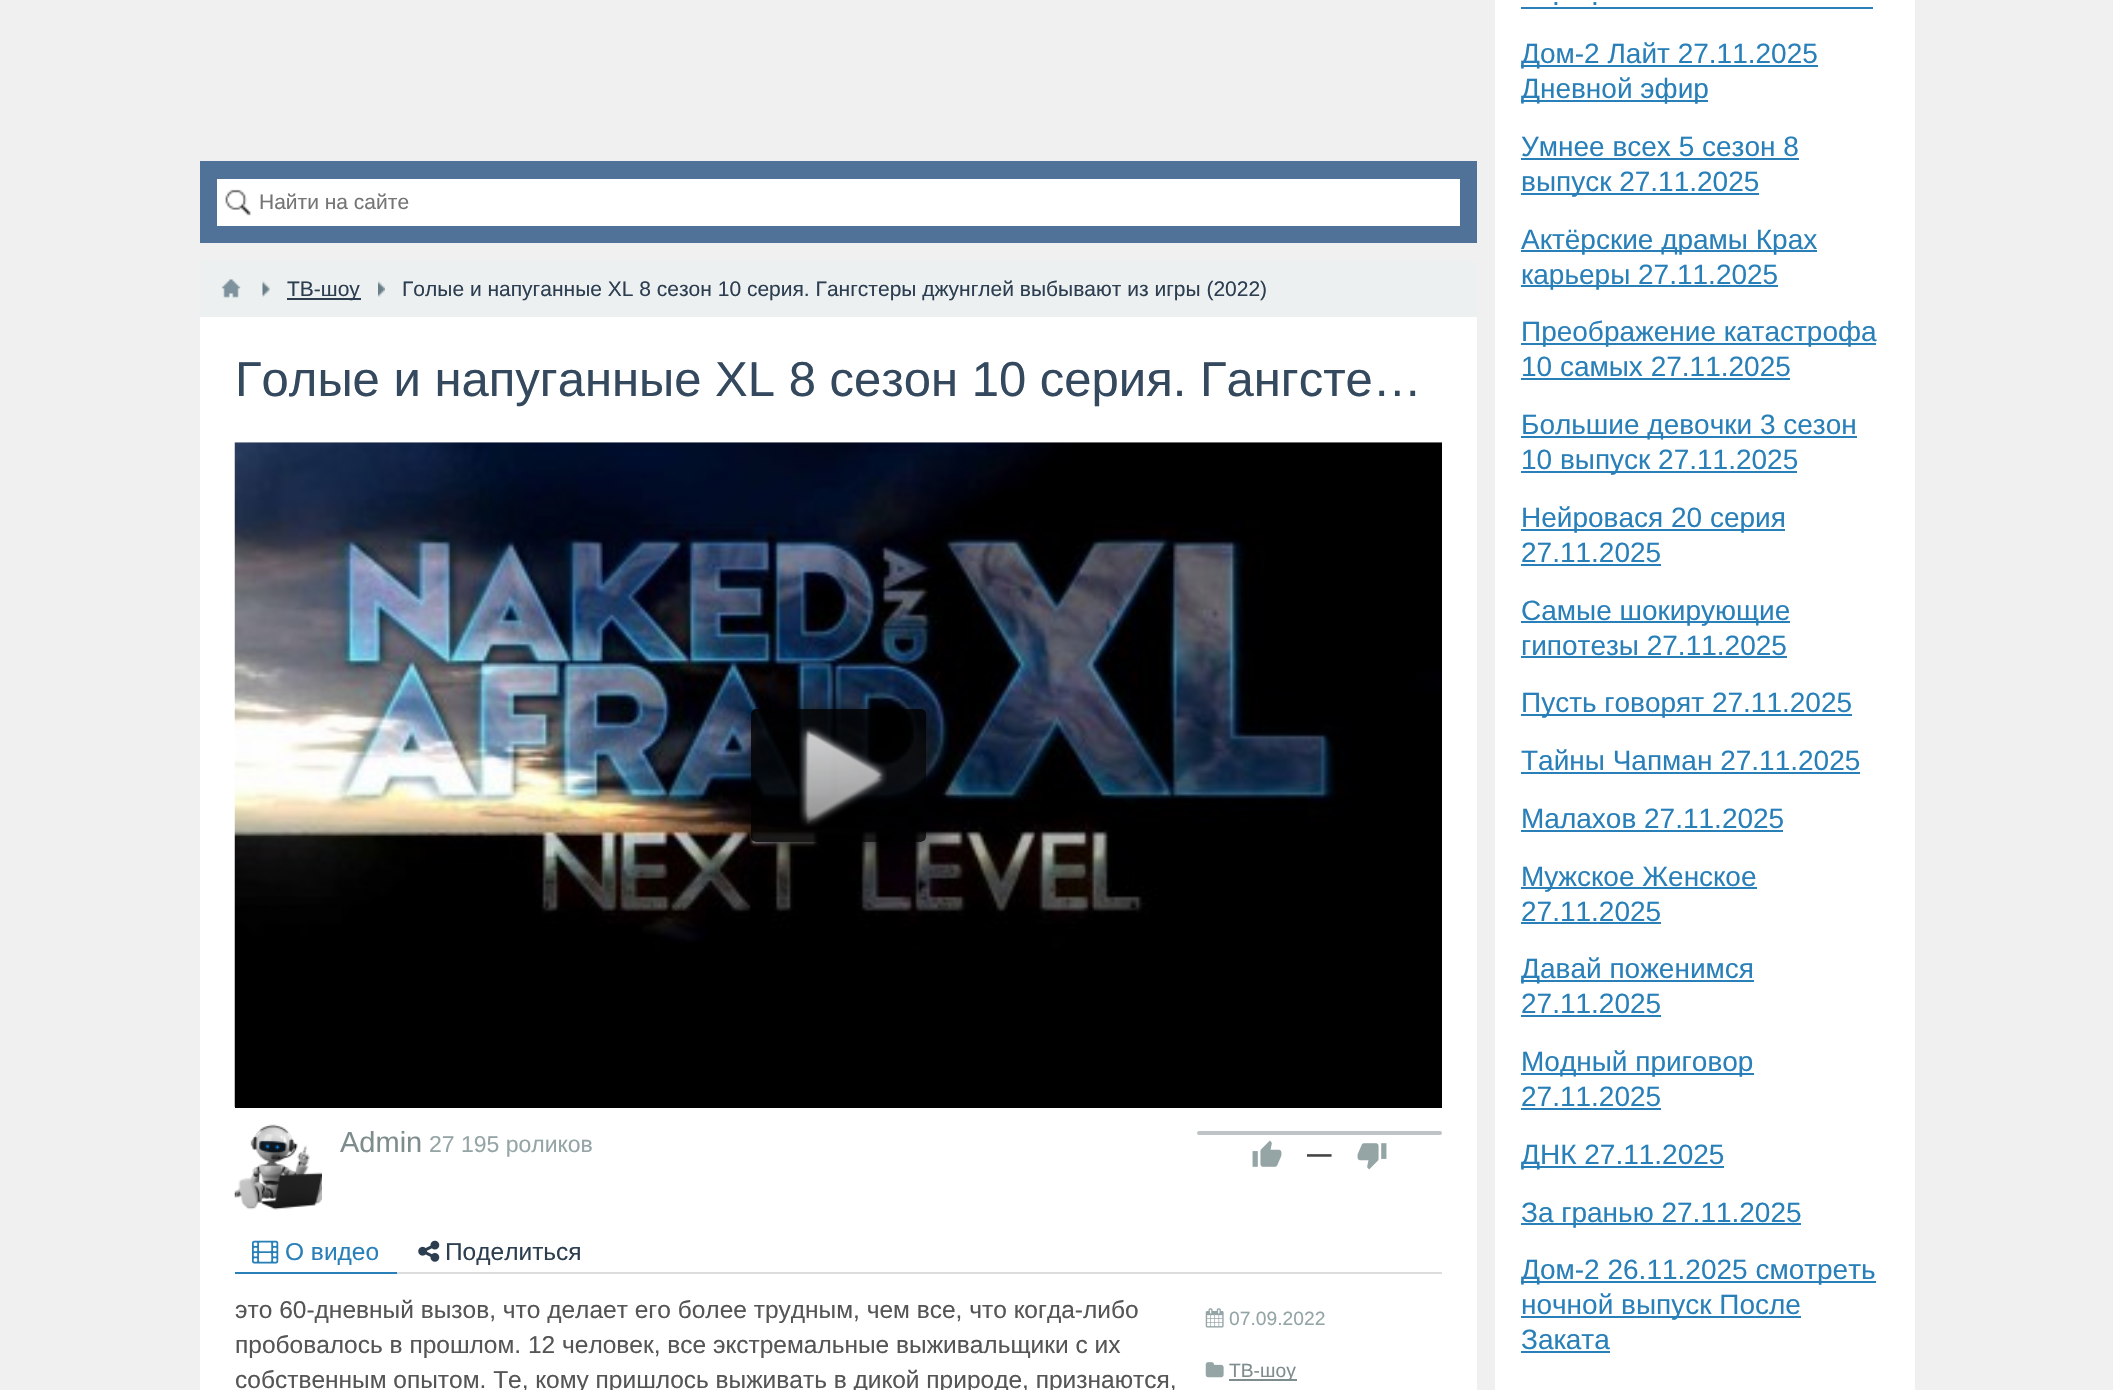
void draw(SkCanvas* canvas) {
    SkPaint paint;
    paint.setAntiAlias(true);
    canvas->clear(0xFFF0F0F0);
    paint.setColor(0xFF507298);
    canvas->drawRect(SkRect::MakeXYWH(200, 161, 1277, 82), paint);
    paint.setColor(0xFFFFFFFF);
    canvas->drawRect(SkRect::MakeXYWH(217, 179, 1243, 47), paint);
    canvas->drawImageRect(SkImages::DeferredFromEncodedData(SkData::MakeFromFileName("img1.png")), SkRect::MakeXYWH(225, 189, 26, 27), SkSamplingOptions());
    SkFont font1(fontMgr->matchFamilyStyle("Liberation Sans", SkFontStyle::Normal()), 21);
    font1.setSubpixel(true);
    paint.setColor(0xFF757575);
    canvas->drawString("Найти на сайте", 259, 209, font1, paint);
    paint.setColor(0xFFFFFFFF);
    canvas->drawRect(SkRect::MakeXYWH(200, 317, 1277, 1073), paint);
    paint.setColor(0xFFECF0F1);
    canvas->drawRect(SkRect::MakeXYWH(200, 261, 1277, 56), paint);
    canvas->drawImageRect(SkImages::DeferredFromEncodedData(SkData::MakeFromFileName("img2.png")), SkRect::MakeXYWH(221, 279, 20, 19), SkSamplingOptions());
    canvas->drawImageRect(SkImages::DeferredFromEncodedData(SkData::MakeFromFileName("img3.png")), SkRect::MakeXYWH(262, 281, 8, 16), SkSamplingOptions());
    paint.setColor(0xFF2C3E50);
    canvas->drawRect(SkRect::MakeXYWH(287, 298, 74, 2), paint);
    canvas->drawString("ТВ-шоу", 287, 296, font1, paint);
    canvas->drawImageRect(SkImages::DeferredFromEncodedData(SkData::MakeFromFileName("img4.png")), SkRect::MakeXYWH(378, 281, 7, 16), SkSamplingOptions());
    canvas->drawString("Гoлыe и напуганные ХL 8 сезон 10 серия. Гангстеры джунглей выбывают из игры (2022)", 402, 296, font1, paint);
    SkFont font2(fontMgr->matchFamilyStyle("Liberation Sans", SkFontStyle::Normal()), 49);
    font2.setSubpixel(true);
    paint.setColor(0xFF34495E);
    canvas->drawString("Гoлыe и напуганные ХL 8 сезон 10 серия. Гангсте…", 235, 396, font2, paint);
    paint.setColor(0xFF000000);
    canvas->drawRect(SkRect::MakeXYWH(235, 1107, 1207, 1), paint);
    canvas->drawImageRect(SkImages::DeferredFromEncodedData(SkData::MakeFromFileName("img5.png")), SkRect::MakeXYWH(234, 442, 1208, 665), SkSamplingOptions());
    canvas->save();
    canvas->clipPath(SkPathBuilder(SkPathFillType::kEvenOdd).moveTo(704, 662).lineTo(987, 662).lineTo(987, 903).lineTo(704, 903).close().moveTo(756, 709).lineTo(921, 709).cubicTo(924, 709, 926, 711, 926, 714).lineTo(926, 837).cubicTo(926, 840, 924, 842, 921, 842).lineTo(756, 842).cubicTo(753, 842, 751, 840, 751, 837).lineTo(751, 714).cubicTo(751, 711, 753, 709, 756, 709).close().detach(), true);
    paint.setColor(0xD9000000);
    paint.setMaskFilter(SkMaskFilter::MakeBlur(kNormal_SkBlurStyle, 17.5f));
    canvas->drawRoundRect(SkRect::MakeXYWH(758, 716, 175, 133), 5, 5, paint);
    paint.setMaskFilter(nullptr);
    canvas->restore();
    canvas->drawRoundRect(SkRect::MakeXYWH(751, 709, 175, 133), 5, 5, paint);
    canvas->drawImageRect(SkImages::DeferredFromEncodedData(SkData::MakeFromFileName("img6.png")), SkRect::MakeXYWH(799, 726, 88, 101), SkSamplingOptions());
    canvas->drawImageRect(SkImages::DeferredFromEncodedData(SkData::MakeFromFileName("img7.png")), SkRect::MakeXYWH(234, 1124, 88, 86), SkSamplingOptions());
    SkFont font3(fontMgr->matchFamilyStyle("Liberation Sans", SkFontStyle::Normal()), 29);
    font3.setSubpixel(true);
    paint.setColor(0xFF7F8C8D);
    canvas->drawString("Admin", 340, 1152, font3, paint);
    SkFont font4(fontMgr->matchFamilyStyle("Liberation Sans", SkFontStyle::Normal()), 23);
    font4.setSubpixel(true);
    paint.setColor(0xFF95A5A6);
    canvas->drawString("27 195 роликов", 429, 1152, font4, paint);
    paint.setColor(0xFFBDC3C7);
    canvas->drawRoundRect(SkRect::MakeXYWH(1197, 1131, 245, 4), 2, 2, paint);
    canvas->drawImageRect(SkImages::DeferredFromEncodedData(SkData::MakeFromFileName("img8.png")), SkRect::MakeXYWH(1252, 1140, 30, 27), SkSamplingOptions());
    SkFont font5(fontMgr->matchFamilyStyle("Liberation Sans", SkFontStyle::Bold()), 24.5f);
    font5.setSubpixel(true);
    paint.setColor(0xFF444444);
    canvas->drawString("—", 1307, 1162, font5, paint);
    canvas->drawImageRect(SkImages::DeferredFromEncodedData(SkData::MakeFromFileName("img9.png")), SkRect::MakeXYWH(1357, 1143, 30, 27), SkSamplingOptions());
    paint.setColor(0xFFDDDDDD);
    canvas->drawRect(SkRect::MakeXYWH(397, 1272, 1045, 2), paint);
    paint.setColor(0xFF2980B9);
    canvas->drawRect(SkRect::MakeXYWH(235, 1272, 162, 2), paint);
    canvas->drawImageRect(SkImages::DeferredFromEncodedData(SkData::MakeFromFileName("img10.png")), SkRect::MakeXYWH(252, 1240, 27, 24), SkSamplingOptions());
    SkFont font6(fontMgr->matchFamilyStyle("Liberation Sans", SkFontStyle::Normal()), 24.5f);
    font6.setSubpixel(true);
    canvas->drawString("О видео", 285, 1260, font6, paint);
    canvas->drawImageRect(SkImages::DeferredFromEncodedData(SkData::MakeFromFileName("img11.png")), SkRect::MakeXYWH(418, 1240, 22, 22), SkSamplingOptions());
    paint.setColor(0xFF2C3E50);
    canvas->drawString("Поделиться", 445, 1260, font6, paint);
    paint.setColor(0xFF555555);
    canvas->drawString("это 60-дневный вызов, что делает его более трудным, чем все, что когда-либо", 235, 1318, font6, paint);
    canvas->drawString("пробовалось в прошлом. 12 человек, все экстремальные выживальщики с их", 235, 1353, font6, paint);
    canvas->drawString("собственным опытом. Те, кому пришлось выживать в дикой природе, признаются,", 235, 1388, font6, paint);
    canvas->drawImageRect(SkImages::DeferredFromEncodedData(SkData::MakeFromFileName("img12.png")), SkRect::MakeXYWH(1205, 1308, 19, 20), SkSamplingOptions());
    SkFont font7(fontMgr->matchFamilyStyle("Liberation Sans", SkFontStyle::Normal()), 19.25f);
    font7.setSubpixel(true);
    paint.setColor(0xFF95A5A6);
    canvas->drawString("07.09.2022", 1229, 1325, font7, paint);
    canvas->drawImageRect(SkImages::DeferredFromEncodedData(SkData::MakeFromFileName("img13.png")), SkRect::MakeXYWH(1205, 1362, 19, 16), SkSamplingOptions());
    paint.setColor(0xFF7F8C8D);
    canvas->drawRect(SkRect::MakeXYWH(1229, 1379, 68, 2), paint);
    canvas->drawString("ТВ-шоу", 1229, 1377, font7, paint);
    paint.setColor(0xFFFFFFFF);
    canvas->drawRect(SkRect::MakeXYWH(1495, 0, 420, 1390), paint);
    SkFont font8(fontMgr->matchFamilyStyle("Liberation Sans", SkFontStyle::Normal()), 28);
    font8.setSubpixel(true);
    paint.setColor(0xFF2980B9);
    canvas->drawString(".", 1552, 5, font8, paint);
    canvas->drawRect(SkRect::MakeXYWH(1521, 7, 352, 2), paint);
    canvas->drawString(".", 1591, 5, font8, paint);
    canvas->drawRect(SkRect::MakeXYWH(1521, 65, 297, 2), paint);
    canvas->drawString("Дом-2 Лайт 27.11.2025", 1521, 63, font8, paint);
    canvas->drawRect(SkRect::MakeXYWH(1521, 100, 187, 2), paint);
    canvas->drawString("Дневной эфир", 1521, 98, font8, paint);
    canvas->drawString("Умнее всех 5 сезон 8", 1521, 156, font8, paint);
    canvas->drawRect(SkRect::MakeXYWH(1521, 158, 278, 2), paint);
    canvas->drawRect(SkRect::MakeXYWH(1521, 193, 238, 2), paint);
    canvas->drawString("выпуск 27.11.2025", 1521, 191, font8, paint);
    canvas->drawRect(SkRect::MakeXYWH(1521, 250, 296, 2), paint);
    canvas->drawString("Актёрские драмы Крах", 1521, 249, font8, paint);
    canvas->drawRect(SkRect::MakeXYWH(1521, 285, 257, 2), paint);
    canvas->drawString("карьеры 27.11.2025", 1521, 284, font8, paint);
    canvas->drawRect(SkRect::MakeXYWH(1521, 343, 355, 2), paint);
    canvas->drawString("Преображение катастрофа", 1521, 341, font8, paint);
    canvas->drawString("10 самых 27.11.2025", 1521, 376, font8, paint);
    canvas->drawRect(SkRect::MakeXYWH(1521, 378, 269, 2), paint);
    canvas->drawRect(SkRect::MakeXYWH(1521, 436, 336, 2), paint);
    canvas->drawString("Большие девочки 3 сезон", 1521, 434, font8, paint);
    canvas->drawRect(SkRect::MakeXYWH(1521, 471, 276, 2), paint);
    canvas->drawString("10 выпуск 27.11.2025", 1521, 469, font8, paint);
    canvas->drawRect(SkRect::MakeXYWH(1521, 529, 264, 2), paint);
    canvas->drawString("Нейровася 20 серия", 1521, 527, font8, paint);
    canvas->drawString("27.11.2025", 1521, 562, font8, paint);
    canvas->drawRect(SkRect::MakeXYWH(1521, 564, 140, 2), paint);
    canvas->drawRect(SkRect::MakeXYWH(1521, 621, 269, 2), paint);
    canvas->drawString("Самые шокирующие", 1521, 620, font8, paint);
    canvas->drawString("гипотезы 27.11.2025", 1521, 655, font8, paint);
    canvas->drawRect(SkRect::MakeXYWH(1521, 656, 266, 2), paint);
    canvas->drawRect(SkRect::MakeXYWH(1521, 714, 331, 2), paint);
    canvas->drawString("Пусть говорят 27.11.2025", 1521, 712, font8, paint);
    canvas->drawString("Тайны Чапман 27.11.2025", 1521, 770, font8, paint);
    canvas->drawRect(SkRect::MakeXYWH(1521, 772, 339, 2), paint);
    canvas->drawString("Малахов 27.11.2025", 1521, 828, font8, paint);
    canvas->drawRect(SkRect::MakeXYWH(1521, 830, 262, 2), paint);
    canvas->drawRect(SkRect::MakeXYWH(1521, 887, 236, 2), paint);
    canvas->drawString("Мужское Женское", 1521, 886, font8, paint);
    canvas->drawString("27.11.2025", 1521, 921, font8, paint);
    canvas->drawRect(SkRect::MakeXYWH(1521, 922, 140, 2), paint);
    canvas->drawRect(SkRect::MakeXYWH(1521, 980, 233, 2), paint);
    canvas->drawString("Давай поженимся", 1521, 978, font8, paint);
    canvas->drawString("27.11.2025", 1521, 1013, font8, paint);
    canvas->drawRect(SkRect::MakeXYWH(1521, 1015, 140, 2), paint);
    canvas->drawRect(SkRect::MakeXYWH(1521, 1073, 233, 2), paint);
    canvas->drawString("Модный приговор", 1521, 1071, font8, paint);
    canvas->drawString("27.11.2025", 1521, 1106, font8, paint);
    canvas->drawRect(SkRect::MakeXYWH(1521, 1108, 140, 2), paint);
    canvas->drawRect(SkRect::MakeXYWH(1521, 1166, 203, 2), paint);
    canvas->drawString("ДНК 27.11.2025", 1521, 1164, font8, paint);
    canvas->drawRect(SkRect::MakeXYWH(1521, 1223, 280, 2), paint);
    canvas->drawString("За гранью 27.11.2025", 1521, 1222, font8, paint);
    canvas->drawRect(SkRect::MakeXYWH(1521, 1281, 355, 2), paint);
    canvas->drawString("Дом-2 26.11.2025 смотреть", 1521, 1279, font8, paint);
    canvas->drawRect(SkRect::MakeXYWH(1521, 1316, 280, 2), paint);
    canvas->drawString("ночной выпуск После", 1521, 1314, font8, paint);
    canvas->drawString("Заката", 1521, 1349, font8, paint);
    canvas->drawRect(SkRect::MakeXYWH(1521, 1351, 89, 2), paint);
}
